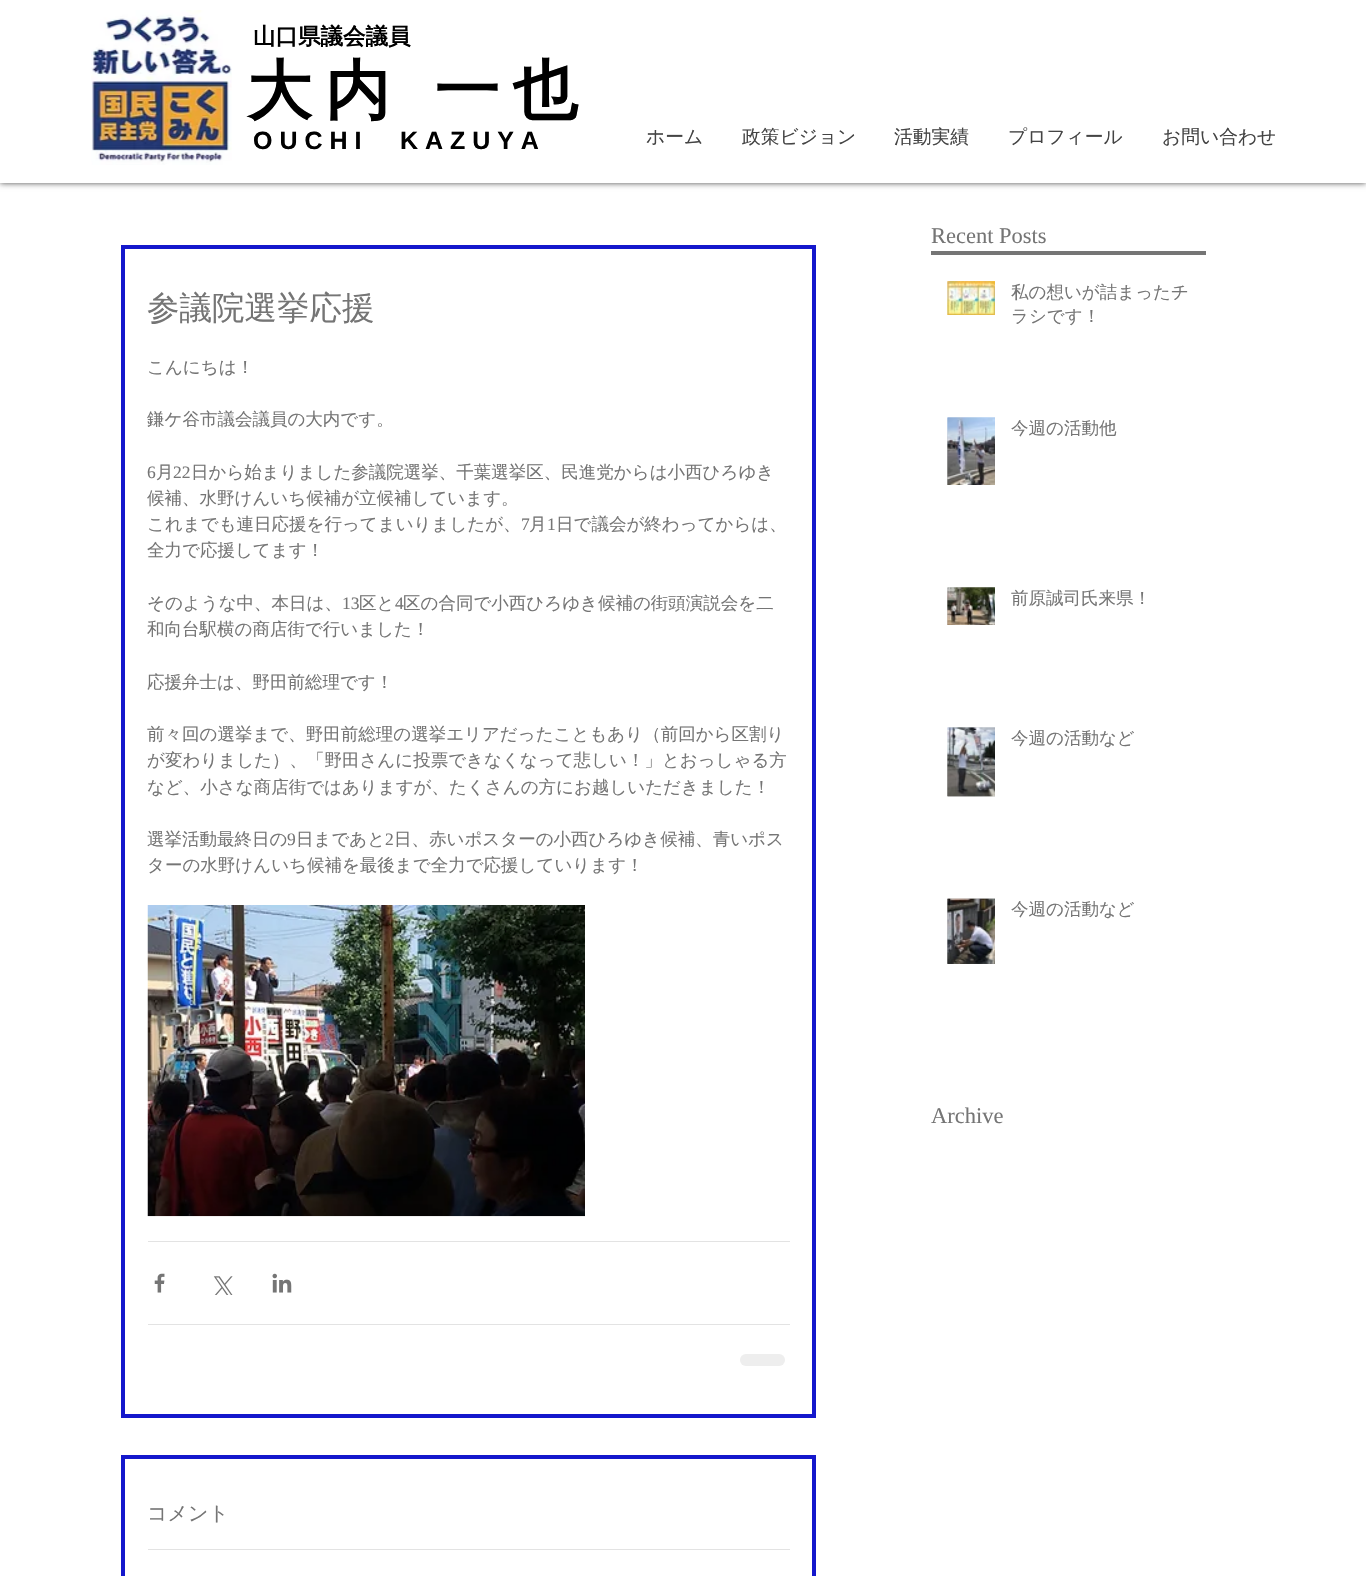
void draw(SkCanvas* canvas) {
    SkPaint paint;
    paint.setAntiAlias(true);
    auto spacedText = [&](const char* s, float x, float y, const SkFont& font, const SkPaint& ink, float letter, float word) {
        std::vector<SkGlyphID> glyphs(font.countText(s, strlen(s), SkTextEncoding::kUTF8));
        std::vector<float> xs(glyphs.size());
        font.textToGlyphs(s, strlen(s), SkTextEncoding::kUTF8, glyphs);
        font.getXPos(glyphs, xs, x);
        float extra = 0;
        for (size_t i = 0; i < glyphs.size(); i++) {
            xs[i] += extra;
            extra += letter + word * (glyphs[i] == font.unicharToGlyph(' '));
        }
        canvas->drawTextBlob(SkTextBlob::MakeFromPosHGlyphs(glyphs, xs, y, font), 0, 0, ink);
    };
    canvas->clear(0xFFFFFFFF);
    paint.setColor(0xB3000000);
    paint.setMaskFilter(SkMaskFilter::MakeBlur(kNormal_SkBlurStyle, 3));
    canvas->drawRect(SkRect::MakeXYWH(0, 0, 1366, 183), paint);
    paint.setMaskFilter(nullptr);
    paint.setColor(0xFFFFFFFF);
    canvas->drawRect(SkRect::MakeXYWH(0, 0, 1366, 183), paint);
    canvas->drawImageRect(SkImages::DeferredFromEncodedData(SkData::MakeFromFileName("img1.png")), SkRect::MakeXYWH(91, 10, 141, 155), SkSamplingOptions());
    SkFont font1(fontMgr->matchFamilyStyle("WenQuanYi Zen Hei", SkFontStyle::Bold()), 22.5f);
    font1.setSubpixel(true);
    paint.setColor(0xFF000000);
    canvas->drawString("山口県議会議員", 253, 44, font1, paint);
    SkFont font2(fontMgr->matchFamilyStyle("WenQuanYi Zen Hei", SkFontStyle::Bold()), 65);
    font2.setSubpixel(true);
    spacedText("大内 一也", 247, 113, font2, paint, 13, -1);
    SkFont font3(fontMgr->matchFamilyStyle("Liberation Sans", SkFontStyle::Bold()), 25);
    font3.setSubpixel(true);
    canvas->drawString("O U C H I", 253, 149, font3, paint);
    canvas->drawString("K A Z U Y A", 400, 149, font3, paint);
    SkFont font4(fontMgr->matchFamilyStyle("WenQuanYi Zen Hei", SkFontStyle(500, SkFontStyle::kNormal_Width, SkFontStyle::kUpright_Slant)), 18.75f);
    font4.setSubpixel(true);
    paint.setColor(0xFF444444);
    canvas->drawString("ホーム", 646, 143, font4, paint);
    canvas->drawString("政策ビジョン", 742, 143, font4, paint);
    canvas->drawString("活動実績", 894, 143, font4, paint);
    canvas->drawString("プロフィール", 1008, 143, font4, paint);
    canvas->drawString("お問い合わせ", 1162, 143, font4, paint);
    SkFont font5(fontMgr->matchFamilyStyle("Liberation Serif", SkFontStyle::Normal()), 22.5f);
    font5.setSubpixel(true);
    paint.setColor(0xFF757575);
    canvas->drawString("Recent Posts", 931, 243, font5, paint);
    canvas->drawRect(SkRect::MakeXYWH(931, 251, 275, 4), paint);
    paint.setStyle(SkPaint::kStroke_Style);
    paint.setStrokeWidth(4);
    paint.setColor(0xFF1417CC);
    canvas->drawRect(SkRect::MakeXYWH(123, 247, 691, 1169), paint);
    SkFont font6(fontMgr->matchFamilyStyle("WenQuanYi Zen Hei", SkFontStyle(500, SkFontStyle::kNormal_Width, SkFontStyle::kUpright_Slant)), 32.5f);
    font6.setSubpixel(true);
    paint.setStyle(SkPaint::kFill_Style);
    paint.setColor(0xFF757575);
    canvas->drawString("参議院選挙応援", 147, 319, font6, paint);
    SkFont font7(fontMgr->matchFamilyStyle("WenQuanYi Zen Hei", SkFontStyle(500, SkFontStyle::kNormal_Width, SkFontStyle::kUpright_Slant)), 17.5f);
    font7.setSubpixel(true);
    canvas->drawString("こんにちは！", 147, 373, font7, paint);
    canvas->drawString("鎌ケ谷市議会議員の大内です。", 147, 425, font7, paint);
    SkFont font8(fontMgr->matchFamilyStyle("Liberation Serif", SkFontStyle::Normal()), 17.5f);
    font8.setSubpixel(true);
    canvas->drawString("6", 147, 478, font8, paint);
    canvas->drawString("月", 156, 478, font7, paint);
    canvas->drawString("22", 173, 478, font8, paint);
    canvas->drawString("日から始まりました参議院選挙、千葉選挙区、民進党からは小西ひろゆき", 191, 478, font7, paint);
    canvas->drawString("候補、水野けんいち候補が立候補しています。", 147, 504, font7, paint);
    canvas->drawString("これまでも連日応援を行ってまいりましたが、", 147, 530, font7, paint);
    canvas->drawString("7", 521, 530, font8, paint);
    canvas->drawString("月", 529, 530, font7, paint);
    canvas->drawString("1", 547, 530, font8, paint);
    canvas->drawString("日で議会が終わってからは、", 556, 530, font7, paint);
    canvas->drawString("全力で応援してます！", 147, 556, font7, paint);
    canvas->drawString("そのような中、本日は、", 147, 609, font7, paint);
    canvas->drawString("13", 342, 609, font8, paint);
    canvas->drawString("区と", 359, 609, font7, paint);
    canvas->drawString("4", 395, 609, font8, paint);
    canvas->drawString("区の合同で小西ひろゆき候補の街頭演説会を二", 403, 609, font7, paint);
    canvas->drawString("和向台駅横の商店街で行いました！", 147, 635, font7, paint);
    canvas->drawString("応援弁士は、野田前総理です！", 147, 688, font7, paint);
    canvas->drawString("前々回の選挙まで、野田前総理の選挙エリアだったこともあり（前回から区割り", 147, 740, font7, paint);
    canvas->drawString("が変わりました）、「野田さんに投票できなくなって悲しい！」とおっしゃる方", 147, 766, font7, paint);
    canvas->drawString("など、小さな商店街ではありますが、たくさんの方にお越しいただきました！", 147, 793, font7, paint);
    canvas->drawString("選挙活動最終日の", 147, 845, font7, paint);
    canvas->drawString("9", 287, 845, font8, paint);
    canvas->drawString("日まであと", 296, 845, font7, paint);
    canvas->drawString("2", 385, 845, font8, paint);
    canvas->drawString("日、赤いポスターの小西ひろゆき候補、青いポス", 394, 845, font7, paint);
    canvas->drawString("ターの水野けんいち候補を最後まで全力で応援していります！", 147, 871, font7, paint);
    canvas->drawImageRect(SkImages::DeferredFromEncodedData(SkData::MakeFromFileName("img2.png")), SkRect::MakeXYWH(147, 905, 438, 312), SkSamplingOptions());
    paint.setColor(0xFFE3E3E3);
    canvas->drawRect(SkRect::MakeXYWH(148, 1241, 642, 1), paint);
    canvas->drawImageRect(SkImages::DeferredFromEncodedData(SkData::MakeFromFileName("img3.png")), SkRect::MakeXYWH(154, 1273, 11, 20), SkSamplingOptions());
    canvas->drawImageRect(SkImages::DeferredFromEncodedData(SkData::MakeFromFileName("img4.png")), SkRect::MakeXYWH(213, 1276, 20, 19), SkSamplingOptions());
    canvas->drawImageRect(SkImages::DeferredFromEncodedData(SkData::MakeFromFileName("img5.png")), SkRect::MakeXYWH(272, 1273, 20, 20), SkSamplingOptions());
    canvas->drawRect(SkRect::MakeXYWH(148, 1324, 642, 1), paint);
    paint.setColor(0xFFEEEEEE);
    canvas->drawRoundRect(SkRect::MakeXYWH(740, 1354, 45, 12), 6, 6, paint);
    paint.setStyle(SkPaint::kStroke_Style);
    paint.setColor(0xFF1417CC);
    canvas->drawRect(SkRect::MakeXYWH(123, 1457, 691, 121), paint);
    SkFont font9(fontMgr->matchFamilyStyle("WenQuanYi Zen Hei", SkFontStyle(500, SkFontStyle::kNormal_Width, SkFontStyle::kUpright_Slant)), 20);
    font9.setSubpixel(true);
    paint.setStyle(SkPaint::kFill_Style);
    paint.setColor(0xFF757575);
    canvas->drawString("コメント", 147, 1520, font9, paint);
    paint.setColor(0xFFE3E3E3);
    canvas->drawRect(SkRect::MakeXYWH(148, 1549, 642, 1), paint);
    paint.setColor(0xFF757575);
    canvas->drawString("Archive", 931, 1123, font5, paint);
    canvas->drawImageRect(SkImages::DeferredFromEncodedData(SkData::MakeFromFileName("img6.png")), SkRect::MakeXYWH(947, 281, 48, 34), SkSamplingOptions());
    canvas->drawImageRect(SkImages::DeferredFromEncodedData(SkData::MakeFromFileName("img7.png")), SkRect::MakeXYWH(947, 281, 48, 34), SkSamplingOptions());
    canvas->drawString("私の想いが詰まったチ", 1011, 298, font7, paint);
    canvas->drawString("ラシです！", 1011, 322, font7, paint);
    canvas->drawImageRect(SkImages::DeferredFromEncodedData(SkData::MakeFromFileName("img8.png")), SkRect::MakeXYWH(947, 417, 48, 68), SkSamplingOptions());
    canvas->drawImageRect(SkImages::DeferredFromEncodedData(SkData::MakeFromFileName("img9.png")), SkRect::MakeXYWH(947, 417, 48, 68), SkSamplingOptions());
    canvas->drawString("今週の活動他", 1011, 434, font7, paint);
    canvas->drawImageRect(SkImages::DeferredFromEncodedData(SkData::MakeFromFileName("img10.png")), SkRect::MakeXYWH(947, 587, 48, 38), SkSamplingOptions());
    canvas->drawImageRect(SkImages::DeferredFromEncodedData(SkData::MakeFromFileName("img11.png")), SkRect::MakeXYWH(947, 587, 48, 38), SkSamplingOptions());
    canvas->drawString("前原誠司氏来県！", 1011, 604, font7, paint);
    canvas->drawImageRect(SkImages::DeferredFromEncodedData(SkData::MakeFromFileName("img12.png")), SkRect::MakeXYWH(947, 727, 48, 70), SkSamplingOptions());
    canvas->drawImageRect(SkImages::DeferredFromEncodedData(SkData::MakeFromFileName("img13.png")), SkRect::MakeXYWH(947, 727, 48, 70), SkSamplingOptions());
    canvas->drawString("今週の活動など", 1011, 744, font7, paint);
    canvas->drawImageRect(SkImages::DeferredFromEncodedData(SkData::MakeFromFileName("img14.png")), SkRect::MakeXYWH(947, 898, 48, 66), SkSamplingOptions());
    canvas->drawImageRect(SkImages::DeferredFromEncodedData(SkData::MakeFromFileName("img15.png")), SkRect::MakeXYWH(947, 898, 48, 66), SkSamplingOptions());
    canvas->drawString("今週の活動など", 1011, 915, font7, paint);
}
